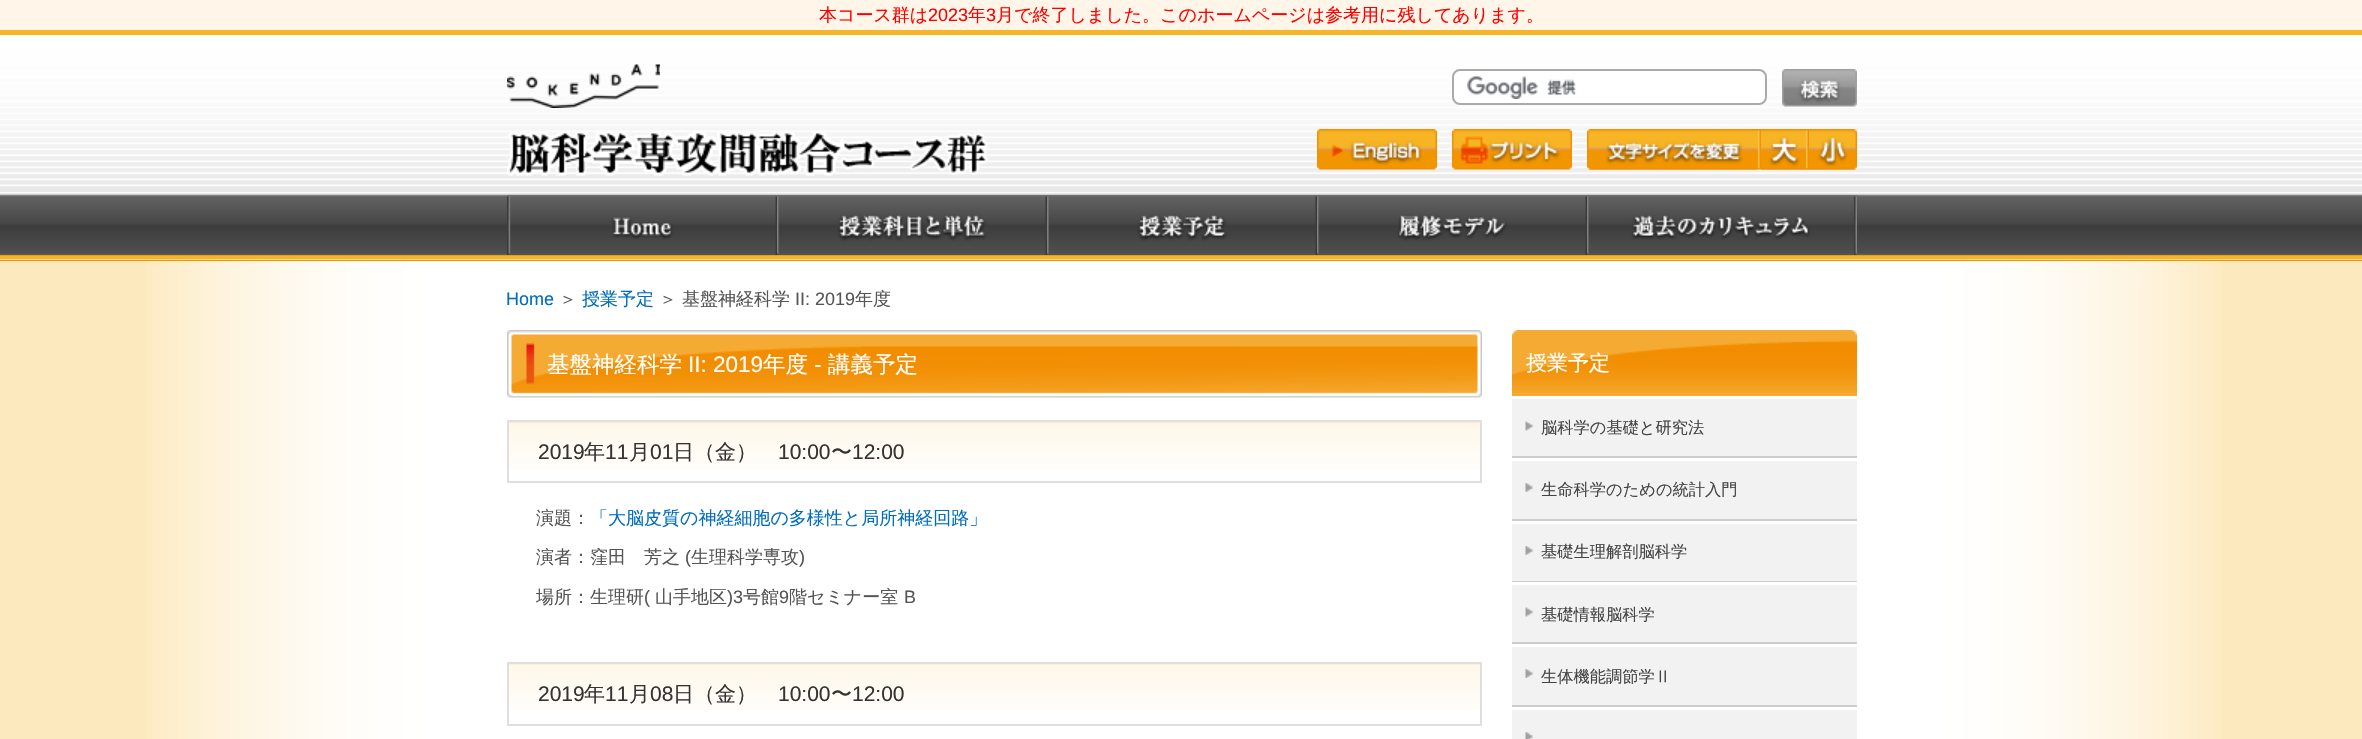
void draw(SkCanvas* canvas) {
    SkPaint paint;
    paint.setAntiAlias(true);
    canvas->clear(0xFFF4F4F4);
    paint.setColor(0xFFFFF6E9);
    canvas->drawRect(SkRect::MakeXYWH(0, 0, 2362, 30), paint);
    SkFont font1(fontMgr->matchFamilyStyle("WenQuanYi Zen Hei", SkFontStyle(500, SkFontStyle::kNormal_Width, SkFontStyle::kUpright_Slant)), 18);
    font1.setSubpixel(true);
    paint.setColor(0xFFFF0000);
    canvas->drawString("本コース群は", 819, 21, font1, paint);
    SkFont font2(fontMgr->matchFamilyStyle("Liberation Sans", SkFontStyle::Normal()), 18);
    font2.setSubpixel(true);
    canvas->drawString("2023", 928, 21, font2, paint);
    canvas->drawString("年", 968, 21, font1, paint);
    canvas->drawString("3", 986, 21, font2, paint);
    canvas->drawString("月で終了しました。このホームページは参考用に残してあります。", 996, 21, font1, paint);
    canvas->drawImageRect(SkImages::DeferredFromEncodedData(SkData::MakeFromFileName("img1.png")), SkRect::MakeXYWH(0, 35, 2362, 225), SkSamplingOptions());
    paint.setColor(0xFFF7B525);
    canvas->drawRect(SkRect::MakeXYWH(0, 30, 2362, 5), paint);
    paint.setColor(0xFFF29600);
    canvas->drawRect(SkRect::MakeXYWH(0, 260, 2362, 1), paint);
    canvas->drawImageRect(SkImages::DeferredFromEncodedData(SkData::MakeFromFileName("img2.png")), SkRect::MakeXYWH(507, 64, 153, 44), SkSamplingOptions());
    canvas->drawImageRect(SkImages::DeferredFromEncodedData(SkData::MakeFromFileName("img3.png")), SkRect::MakeXYWH(507, 132, 481, 44), SkSamplingOptions());
    paint.setColor(0xFFFFFFFF);
    canvas->drawRoundRect(SkRect::MakeXYWH(1452, 69, 315, 36), 8, 8, paint);
    canvas->drawImageRect(SkImages::DeferredFromEncodedData(SkData::MakeFromFileName("img4.png")), SkRect::MakeXYWH(1467, 76, 110, 23), SkSamplingOptions());
    paint.setStyle(SkPaint::kStroke_Style);
    paint.setStrokeWidth(2);
    paint.setColor(0xFFAAAAAA);
    canvas->drawRoundRect(SkRect::MakeXYWH(1453, 70, 313, 34), 7, 7, paint);
    canvas->drawImageRect(SkImages::DeferredFromEncodedData(SkData::MakeFromFileName("img5.png")), SkRect::MakeXYWH(1782, 69, 75, 38), SkSamplingOptions());
    canvas->drawImageRect(SkImages::DeferredFromEncodedData(SkData::MakeFromFileName("img6.png")), SkRect::MakeXYWH(1317, 129, 120, 41), SkSamplingOptions());
    canvas->drawImageRect(SkImages::DeferredFromEncodedData(SkData::MakeFromFileName("img7.png")), SkRect::MakeXYWH(1452, 129, 120, 41), SkSamplingOptions());
    canvas->drawImageRect(SkImages::DeferredFromEncodedData(SkData::MakeFromFileName("img8.png")), SkRect::MakeXYWH(1587, 129, 270, 41), SkSamplingOptions());
    canvas->drawImageRect(SkImages::DeferredFromEncodedData(SkData::MakeFromFileName("img9.png")), SkRect::MakeXYWH(1588, 169, 169, 1), SkSamplingOptions());
    canvas->drawImageRect(SkImages::DeferredFromEncodedData(SkData::MakeFromFileName("img10.png")), SkRect::MakeXYWH(1761, 131, 48, 39), SkSamplingOptions());
    canvas->drawImageRect(SkImages::DeferredFromEncodedData(SkData::MakeFromFileName("img11.png")), SkRect::MakeXYWH(1809, 129, 47, 41), SkSamplingOptions());
    canvas->drawImageRect(SkImages::DeferredFromEncodedData(SkData::MakeFromFileName("img12.png")), SkRect::MakeXYWH(507, 195, 270, 60), SkSamplingOptions());
    canvas->drawImageRect(SkImages::DeferredFromEncodedData(SkData::MakeFromFileName("img13.png")), SkRect::MakeXYWH(777, 195, 270, 60), SkSamplingOptions());
    canvas->drawImageRect(SkImages::DeferredFromEncodedData(SkData::MakeFromFileName("img14.png")), SkRect::MakeXYWH(1047, 195, 270, 60), SkSamplingOptions());
    canvas->drawImageRect(SkImages::DeferredFromEncodedData(SkData::MakeFromFileName("img15.png")), SkRect::MakeXYWH(1317, 195, 270, 60), SkSamplingOptions());
    canvas->drawImageRect(SkImages::DeferredFromEncodedData(SkData::MakeFromFileName("img16.png")), SkRect::MakeXYWH(1587, 195, 270, 60), SkSamplingOptions());
    paint.setStyle(SkPaint::kFill_Style);
    paint.setColor(0xFFFDE9BE);
    canvas->drawRect(SkRect::MakeXYWH(0, 261, 2362, 478), paint);
    canvas->drawImageRect(SkImages::DeferredFromEncodedData(SkData::MakeFromFileName("img17.png")), SkRect::MakeXYWH(146, 261, 2075, 478), SkSamplingOptions());
    paint.setColor(0xFF006DBE);
    canvas->drawString("Home", 506, 305, font2, paint);
    paint.setColor(0xFF555555);
    canvas->drawString("＞", 559, 305, font1, paint);
    paint.setColor(0xFF006DBE);
    canvas->drawString("授業予定", 582, 305, font1, paint);
    paint.setColor(0xFF555555);
    canvas->drawString("＞", 659, 305, font1, paint);
    canvas->drawString("基盤神経科学", 682, 305, font1, paint);
    canvas->drawString("II: 2019", 795, 305, font2, paint);
    canvas->drawString("年度", 855, 305, font1, paint);
    canvas->drawImageRect(SkImages::DeferredFromEncodedData(SkData::MakeFromFileName("img18.png")), SkRect::MakeXYWH(507, 330, 975, 68), SkSamplingOptions());
    SkFont font3(fontMgr->matchFamilyStyle("WenQuanYi Zen Hei", SkFontStyle(500, SkFontStyle::kNormal_Width, SkFontStyle::kUpright_Slant)), 22.5f);
    font3.setSubpixel(true);
    paint.setColor(0xFFFFFFFF);
    canvas->drawString("基盤神経科学", 547, 372, font3, paint);
    SkFont font4(fontMgr->matchFamilyStyle("Liberation Sans", SkFontStyle::Normal()), 22.5f);
    font4.setSubpixel(true);
    canvas->drawString("II: 2019", 688, 372, font4, paint);
    canvas->drawString("年度", 763, 372, font3, paint);
    canvas->drawString("-", 814, 372, font4, paint);
    canvas->drawString("講義予定", 828, 372, font3, paint);
    canvas->drawImageRect(SkImages::DeferredFromEncodedData(SkData::MakeFromFileName("img19.png")), SkRect::MakeXYWH(509, 422, 971, 47), SkSamplingOptions());
    paint.setStyle(SkPaint::kStroke_Style);
    paint.setColor(0xFFDFDFDF);
    canvas->drawRect(SkRect::MakeXYWH(508, 421, 973, 61), paint);
    SkFont font5(fontMgr->matchFamilyStyle("Liberation Sans", SkFontStyle::Normal()), 21);
    font5.setSubpixel(true);
    paint.setStyle(SkPaint::kFill_Style);
    paint.setColor(0xFF333333);
    canvas->drawString("2019", 538, 459, font5, paint);
    SkFont font6(fontMgr->matchFamilyStyle("WenQuanYi Zen Hei", SkFontStyle(500, SkFontStyle::kNormal_Width, SkFontStyle::kUpright_Slant)), 21);
    font6.setSubpixel(true);
    canvas->drawString("年", 584, 459, font6, paint);
    canvas->drawString("11", 605, 459, font5, paint);
    canvas->drawString("月", 629, 459, font6, paint);
    canvas->drawString("01", 650, 459, font5, paint);
    canvas->drawString("日（金）", 673, 459, font6, paint);
    canvas->drawString("10:00", 778, 459, font5, paint);
    canvas->drawString("〜", 831, 459, font6, paint);
    canvas->drawString("12:00", 852, 459, font5, paint);
    paint.setColor(0xFF555555);
    canvas->drawString("演題：", 536, 524, font1, paint);
    paint.setColor(0xFF006DBE);
    canvas->drawString("「大脳皮質の神経細胞の多様性と局所神経回路」", 590, 524, font1, paint);
    paint.setColor(0xFF555555);
    canvas->drawString("演者：窪田　芳之", 536, 563, font1, paint);
    canvas->drawString("(", 685, 563, font2, paint);
    canvas->drawString("生理科学専攻", 691, 563, font1, paint);
    canvas->drawString(")", 799, 563, font2, paint);
    canvas->drawString("場所：生理研", 536, 603, font1, paint);
    canvas->drawString("(", 644, 603, font2, paint);
    canvas->drawString("山手地区", 655, 603, font1, paint);
    canvas->drawString(")3", 727, 603, font2, paint);
    canvas->drawString("号館", 743, 603, font1, paint);
    canvas->drawString("9", 779, 603, font2, paint);
    canvas->drawString("階セミナー室", 789, 603, font1, paint);
    canvas->drawString("B", 904, 603, font2, paint);
    canvas->drawImageRect(SkImages::DeferredFromEncodedData(SkData::MakeFromFileName("img20.png")), SkRect::MakeXYWH(509, 664, 971, 46), SkSamplingOptions());
    paint.setStyle(SkPaint::kStroke_Style);
    paint.setColor(0xFFDFDFDF);
    canvas->drawRect(SkRect::MakeXYWH(508, 663, 973, 62), paint);
    paint.setStyle(SkPaint::kFill_Style);
    paint.setColor(0xFF333333);
    canvas->drawString("2019", 538, 701, font5, paint);
    canvas->drawString("年", 584, 701, font6, paint);
    canvas->drawString("11", 605, 701, font5, paint);
    canvas->drawString("月", 629, 701, font6, paint);
    canvas->drawString("08", 650, 701, font5, paint);
    canvas->drawString("日（金）", 673, 701, font6, paint);
    canvas->drawString("10:00", 778, 701, font5, paint);
    canvas->drawString("〜", 831, 701, font6, paint);
    canvas->drawString("12:00", 852, 701, font5, paint);
    paint.setColor(0xFFF5AA31);
    canvas->drawRect(SkRect::MakeXYWH(1512, 393, 345, 3), paint);
    canvas->drawImageRect(SkImages::DeferredFromEncodedData(SkData::MakeFromFileName("img21.png")), SkRect::MakeXYWH(1512, 330, 345, 63), SkSamplingOptions());
    paint.setColor(0xFFFFFFFF);
    canvas->drawString("授業予定", 1526, 370, font6, paint);
    paint.setColor(0xFFF2F2F2);
    canvas->drawRect(SkRect::MakeXYWH(1512, 399, 345, 57), paint);
    canvas->drawImageRect(SkImages::DeferredFromEncodedData(SkData::MakeFromFileName("img22.png")), SkRect::MakeXYWH(1525, 421, 8, 10), SkSamplingOptions());
    paint.setColor(0xFFCCCCCC);
    canvas->drawRect(SkRect::MakeXYWH(1512, 456, 345, 2), paint);
    SkFont font7(fontMgr->matchFamilyStyle("WenQuanYi Zen Hei", SkFontStyle(500, SkFontStyle::kNormal_Width, SkFontStyle::kUpright_Slant)), 16.25f);
    font7.setSubpixel(true);
    paint.setColor(0xFF444444);
    canvas->drawString("脳科学の基礎と研究法", 1541, 433, font7, paint);
    paint.setColor(0xFFF2F2F2);
    canvas->drawRect(SkRect::MakeXYWH(1512, 461, 345, 58), paint);
    canvas->drawImageRect(SkImages::DeferredFromEncodedData(SkData::MakeFromFileName("img23.png")), SkRect::MakeXYWH(1525, 483, 8, 9), SkSamplingOptions());
    paint.setColor(0xFFCCCCCC);
    canvas->drawRect(SkRect::MakeXYWH(1512, 519, 345, 2), paint);
    paint.setColor(0xFF444444);
    canvas->drawString("生命科学のための統計入門", 1541, 495, font7, paint);
    paint.setColor(0xFFF2F2F2);
    canvas->drawRect(SkRect::MakeXYWH(1512, 524, 345, 57), paint);
    canvas->drawImageRect(SkImages::DeferredFromEncodedData(SkData::MakeFromFileName("img23.png")), SkRect::MakeXYWH(1525, 546, 8, 9), SkSamplingOptions());
    paint.setColor(0xFFCCCCCC);
    canvas->drawRect(SkRect::MakeXYWH(1512, 581, 345, 1), paint);
    paint.setColor(0xFF444444);
    canvas->drawString("基礎生理解剖脳科学", 1541, 557, font7, paint);
    paint.setColor(0xFFF2F2F2);
    canvas->drawRect(SkRect::MakeXYWH(1512, 585, 345, 57), paint);
    canvas->drawImageRect(SkImages::DeferredFromEncodedData(SkData::MakeFromFileName("img22.png")), SkRect::MakeXYWH(1525, 607, 8, 10), SkSamplingOptions());
    paint.setColor(0xFFCCCCCC);
    canvas->drawRect(SkRect::MakeXYWH(1512, 642, 345, 2), paint);
    paint.setColor(0xFF444444);
    canvas->drawString("基礎情報脳科学", 1541, 620, font7, paint);
    paint.setColor(0xFFF2F2F2);
    canvas->drawRect(SkRect::MakeXYWH(1512, 647, 345, 58), paint);
    canvas->drawImageRect(SkImages::DeferredFromEncodedData(SkData::MakeFromFileName("img23.png")), SkRect::MakeXYWH(1525, 669, 8, 9), SkSamplingOptions());
    paint.setColor(0xFFCCCCCC);
    canvas->drawRect(SkRect::MakeXYWH(1512, 705, 345, 2), paint);
    paint.setColor(0xFF444444);
    canvas->drawString("生体機能調節学Ⅱ", 1541, 682, font7, paint);
    paint.setColor(0xFFF2F2F2);
    canvas->drawRect(SkRect::MakeXYWH(1512, 710, 345, 29), paint);
    canvas->drawImageRect(SkImages::DeferredFromEncodedData(SkData::MakeFromFileName("img24.png")), SkRect::MakeXYWH(1525, 732, 8, 7), SkSamplingOptions());
}
